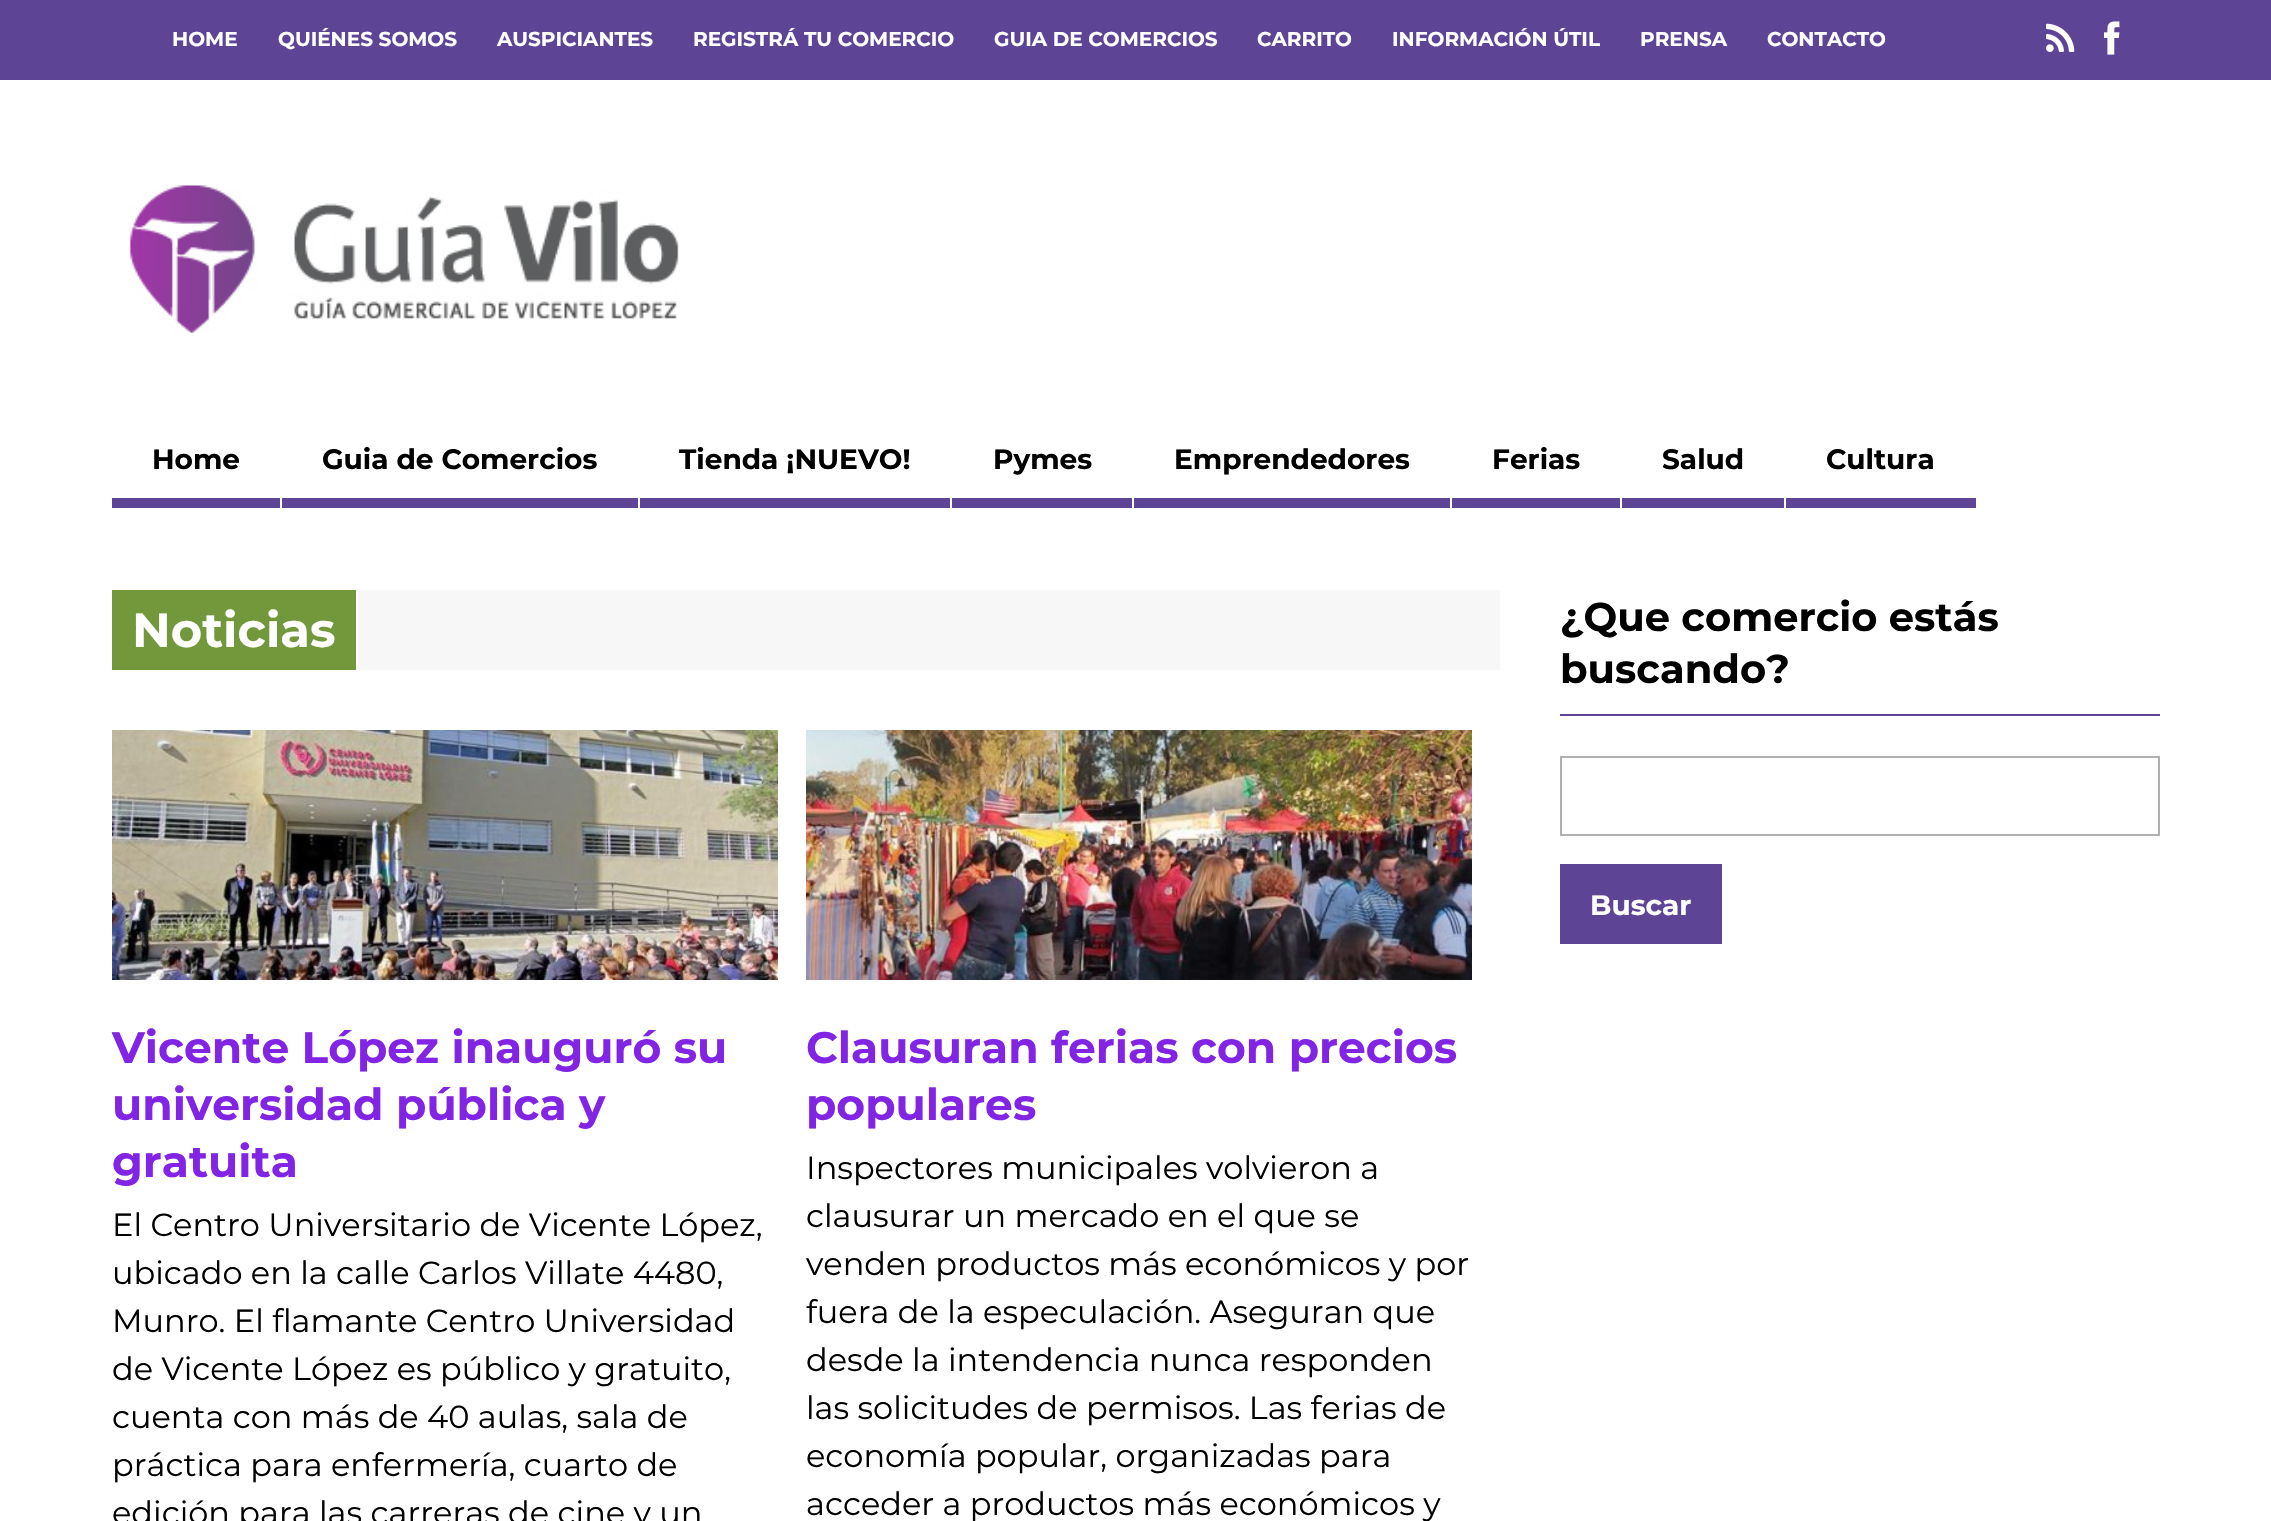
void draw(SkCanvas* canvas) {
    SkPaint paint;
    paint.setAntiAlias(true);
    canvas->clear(0xFFFFFFFF);
    paint.setColor(0xFF5E4495);
    canvas->drawRect(SkRect::MakeXYWH(0, 0, 2271, 80), paint);
    SkFont font1(fontMgr->matchFamilyStyle("Montserrat", SkFontStyle::Bold()), 20);
    font1.setSubpixel(true);
    paint.setColor(0xFFFFFFFF);
    canvas->drawString("HOME", 172, 46, font1, paint);
    canvas->drawString("QUIÉNES SOMOS", 278, 46, font1, paint);
    canvas->drawString("AUSPICIANTES", 497, 46, font1, paint);
    canvas->drawString("REGISTRÁ TU COMERCIO", 693, 46, font1, paint);
    canvas->drawString("GUIA DE COMERCIOS", 994, 46, font1, paint);
    canvas->drawString("CARRITO", 1257, 46, font1, paint);
    canvas->drawString("INFORMACIÓN ÚTIL", 1392, 46, font1, paint);
    canvas->drawString("PRENSA", 1640, 46, font1, paint);
    canvas->drawString("CONTACTO", 1767, 46, font1, paint);
    canvas->drawImageRect(SkImages::DeferredFromEncodedData(SkData::MakeFromFileName("img1.png")), SkRect::MakeXYWH(2046, 23, 29, 29), SkSamplingOptions());
    canvas->drawImageRect(SkImages::DeferredFromEncodedData(SkData::MakeFromFileName("img2.png")), SkRect::MakeXYWH(2104, 21, 16, 34), SkSamplingOptions());
    canvas->drawImageRect(SkImages::DeferredFromEncodedData(SkData::MakeFromFileName("img3.png")), SkRect::MakeXYWH(129, 185, 550, 148), SkSamplingOptions());
    paint.setColor(0xFF5E4495);
    canvas->drawRect(SkRect::MakeXYWH(112, 498, 168, 10), paint);
    SkFont font2(fontMgr->matchFamilyStyle("Montserrat", SkFontStyle::Bold()), 28);
    font2.setSubpixel(true);
    paint.setColor(0xFF000000);
    canvas->drawString("Home", 152, 469, font2, paint);
    paint.setColor(0xFF5E4495);
    canvas->drawRect(SkRect::MakeXYWH(282, 498, 356, 10), paint);
    paint.setColor(0xFF000000);
    canvas->drawString("Guia de Comercios", 322, 469, font2, paint);
    paint.setColor(0xFF5E4495);
    canvas->drawRect(SkRect::MakeXYWH(640, 498, 310, 10), paint);
    paint.setColor(0xFF000000);
    canvas->drawString("Tienda ¡NUEVO!", 679, 469, font2, paint);
    paint.setColor(0xFF5E4495);
    canvas->drawRect(SkRect::MakeXYWH(952, 498, 180, 10), paint);
    paint.setColor(0xFF000000);
    canvas->drawString("Pymes", 993, 469, font2, paint);
    paint.setColor(0xFF5E4495);
    canvas->drawRect(SkRect::MakeXYWH(1134, 498, 316, 10), paint);
    paint.setColor(0xFF000000);
    canvas->drawString("Emprendedores", 1174, 469, font2, paint);
    paint.setColor(0xFF5E4495);
    canvas->drawRect(SkRect::MakeXYWH(1452, 498, 168, 10), paint);
    paint.setColor(0xFF000000);
    canvas->drawString("Ferias", 1492, 469, font2, paint);
    paint.setColor(0xFF5E4495);
    canvas->drawRect(SkRect::MakeXYWH(1622, 498, 162, 10), paint);
    paint.setColor(0xFF000000);
    canvas->drawString("Salud", 1662, 469, font2, paint);
    paint.setColor(0xFF5E4495);
    canvas->drawRect(SkRect::MakeXYWH(1786, 498, 190, 10), paint);
    paint.setColor(0xFF000000);
    canvas->drawString("Cultura", 1826, 469, font2, paint);
    paint.setColor(0xFFF7F7F7);
    canvas->drawRect(SkRect::MakeXYWH(358, 590, 1142, 80), paint);
    paint.setColor(0xFF73983C);
    canvas->drawRect(SkRect::MakeXYWH(112, 590, 244, 80), paint);
    SkFont font3(fontMgr->matchFamilyStyle("Montserrat", SkFontStyle::Bold()), 48);
    font3.setSubpixel(true);
    paint.setColor(0xFFFFFFFF);
    canvas->drawString("Noticias", 132, 647, font3, paint);
    canvas->drawImageRect(SkImages::DeferredFromEncodedData(SkData::MakeFromFileName("img4.png")), SkRect::MakeXYWH(112, 730, 666, 250), SkSamplingOptions());
    SkFont font4(fontMgr->matchFamilyStyle("Montserrat", SkFontStyle::Bold()), 44);
    font4.setSubpixel(true);
    paint.setColor(0xFF8224E3);
    canvas->drawString("Vicente López inauguró su", 112, 1063, font4, paint);
    canvas->drawString("universidad pública y", 112, 1120, font4, paint);
    canvas->drawString("gratuita", 112, 1177, font4, paint);
    SkFont font5(fontMgr->matchFamilyStyle("Montserrat", SkFontStyle::Normal()), 32);
    font5.setSubpixel(true);
    paint.setColor(0xFF000000);
    canvas->drawString("El Centro Universitario de Vicente López,", 112, 1236, font5, paint);
    canvas->drawString("ubicado en la calle Carlos Villate 4480,", 112, 1284, font5, paint);
    canvas->drawString("Munro. El flamante Centro Universidad", 112, 1332, font5, paint);
    canvas->drawString("de Vicente López es público y gratuito,", 112, 1380, font5, paint);
    canvas->drawString("cuenta con más de 40 aulas, sala de", 112, 1428, font5, paint);
    canvas->drawString("práctica para enfermería, cuarto de", 112, 1476, font5, paint);
    canvas->drawString("edición para las carreras de cine y un", 112, 1524, font5, paint);
    canvas->drawImageRect(SkImages::DeferredFromEncodedData(SkData::MakeFromFileName("img5.png")), SkRect::MakeXYWH(806, 730, 666, 250), SkSamplingOptions());
    paint.setColor(0xFF8224E3);
    canvas->drawString("Clausuran ferias con precios", 806, 1063, font4, paint);
    canvas->drawString("populares", 806, 1120, font4, paint);
    paint.setColor(0xFF000000);
    canvas->drawString("Inspectores municipales volvieron a", 806, 1179, font5, paint);
    canvas->drawString("clausurar un mercado en el que se", 806, 1227, font5, paint);
    canvas->drawString("venden productos más económicos y por", 806, 1275, font5, paint);
    canvas->drawString("fuera de la especulación. Aseguran que", 806, 1323, font5, paint);
    canvas->drawString("desde la intendencia nunca responden", 806, 1371, font5, paint);
    canvas->drawString("las solicitudes de permisos. Las ferias de", 806, 1419, font5, paint);
    canvas->drawString("economía popular, organizadas para", 806, 1467, font5, paint);
    canvas->drawString("acceder a productos más económicos y", 806, 1515, font5, paint);
    paint.setColor(0xFF5E4495);
    canvas->drawRect(SkRect::MakeXYWH(1560, 714, 600, 2), paint);
    SkFont font6(fontMgr->matchFamilyStyle("Montserrat", SkFontStyle::Bold()), 40);
    font6.setSubpixel(true);
    paint.setColor(0xFF000000);
    canvas->drawString("¿Que comercio estás", 1560, 631, font6, paint);
    canvas->drawString("buscando?", 1560, 683, font6, paint);
    paint.setStyle(SkPaint::kStroke_Style);
    paint.setStrokeWidth(2);
    paint.setColor(0xFFB1B0B0);
    canvas->drawRect(SkRect::MakeXYWH(1561, 757, 598, 78), paint);
    paint.setStyle(SkPaint::kFill_Style);
    paint.setColor(0xFF5E4495);
    canvas->drawRect(SkRect::MakeXYWH(1560, 864, 162, 80), paint);
    paint.setColor(0xFFFFFFFF);
    canvas->drawString("Buscar", 1590, 915, font2, paint);
}
